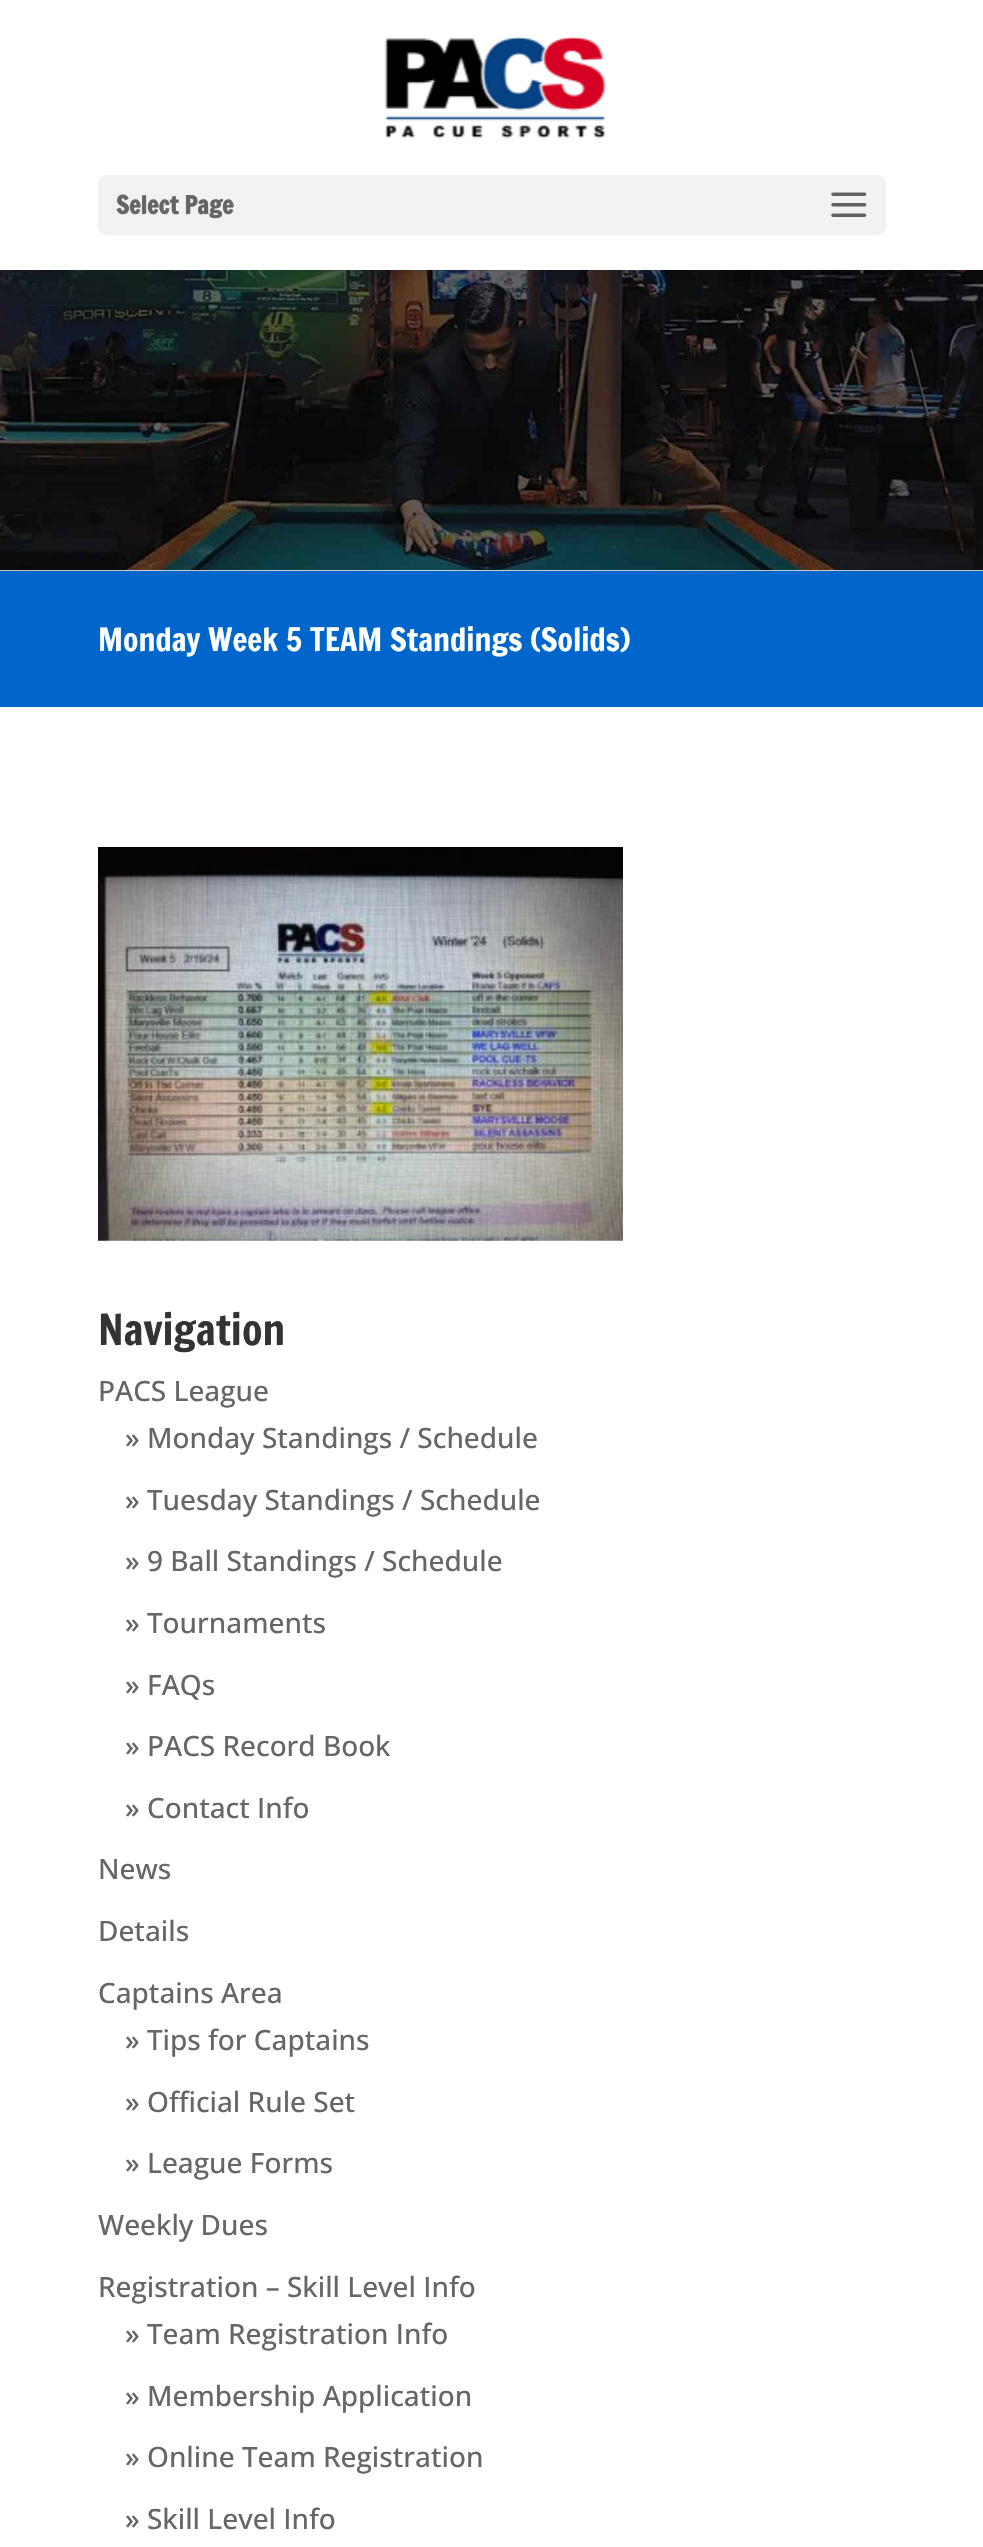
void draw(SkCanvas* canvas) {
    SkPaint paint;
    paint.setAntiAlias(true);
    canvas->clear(0xFFFFFFFF);
    canvas->drawImageRect(SkImages::DeferredFromEncodedData(SkData::MakeFromFileName("img3.png")), SkRect::MakeXYWH(0, 270, 983, 301), SkSamplingOptions());
    paint.setColor(0x1A000000);
    canvas->drawPath(SkPathBuilder().moveTo(0, 270).lineTo(0, 271).lineTo(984, 271).lineTo(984, 2).lineTo(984, 270).close().detach(), paint);
    canvas->drawImageRect(SkImages::DeferredFromEncodedData(SkData::MakeFromFileName("img1.png")), SkRect::MakeXYWH(384, 36, 223, 103), SkSamplingOptions());
    paint.setColor(0xFFF2F2F2);
    canvas->drawRoundRect(SkRect::MakeXYWH(98, 175, 788, 60), 9, 9, paint);
    SkFont font1(fontMgr->matchFamilyStyle("Francois One", SkFontStyle::Bold()), 24.5f);
    font1.setSubpixel(true);
    paint.setColor(0xFF666666);
    canvas->drawString("Select Page", 116, 214, font1, paint);
    canvas->drawImageRect(SkImages::DeferredFromEncodedData(SkData::MakeFromFileName("img2.png")), SkRect::MakeXYWH(831, 192, 36, 25), SkSamplingOptions());
    paint.setColor(0xFF0066CC);
    canvas->drawRect(SkRect::MakeXYWH(0, 571, 983, 136), paint);
    SkFont font2(fontMgr->matchFamilyStyle("Francois One", SkFontStyle::Normal()), 31.5f);
    font2.setSubpixel(true);
    paint.setColor(0xFFFFFFFF);
    canvas->drawString("Monday Week 5 TEAM Standings (Solids)", 98, 651, font2, paint);
    canvas->drawImageRect(SkImages::DeferredFromEncodedData(SkData::MakeFromFileName("img4.png")), SkRect::MakeXYWH(98, 847, 525, 394), SkSamplingOptions());
    SkFont font3(fontMgr->matchFamilyStyle("Francois One", SkFontStyle::Normal()), 42);
    font3.setSubpixel(true);
    paint.setColor(0xFF333333);
    canvas->drawString("Navigation", 98, 1345, font3, paint);
    SkFont font4(fontMgr->matchFamilyStyle("Open Sans", SkFontStyle(500, SkFontStyle::kNormal_Width, SkFontStyle::kUpright_Slant)), 28);
    font4.setSubpixel(true);
    paint.setColor(0xFF666666);
    canvas->drawString("PACS League", 98, 1401, font4, paint);
    canvas->drawString("» Monday Standings / Schedule", 125, 1448, font4, paint);
    canvas->drawString("» Tuesday Standings / Schedule", 125, 1510, font4, paint);
    canvas->drawString("» 9 Ball Standings / Schedule", 125, 1571, font4, paint);
    canvas->drawString("» Tournaments", 125, 1633, font4, paint);
    canvas->drawString("» FAQs", 125, 1695, font4, paint);
    canvas->drawString("» PACS Record Book", 125, 1756, font4, paint);
    canvas->drawString("» Contact Info", 125, 1818, font4, paint);
    canvas->drawString("News", 98, 1879, font4, paint);
    canvas->drawString("Details", 98, 1941, font4, paint);
    canvas->drawString("Captains Area", 98, 2003, font4, paint);
    canvas->drawString("» Tips for Captains", 125, 2050, font4, paint);
    canvas->drawString("» Official Rule Set", 125, 2112, font4, paint);
    canvas->drawString("» League Forms", 125, 2173, font4, paint);
    canvas->drawString("Weekly Dues", 98, 2235, font4, paint);
    canvas->drawString("Registration – Skill Level Info", 98, 2297, font4, paint);
    canvas->drawString("» Team Registration Info", 125, 2344, font4, paint);
    canvas->drawString("» Membership Application", 125, 2406, font4, paint);
    canvas->drawString("» Online Team Registration", 125, 2467, font4, paint);
    canvas->drawString("» Skill Level Info", 125, 2529, font4, paint);
}
